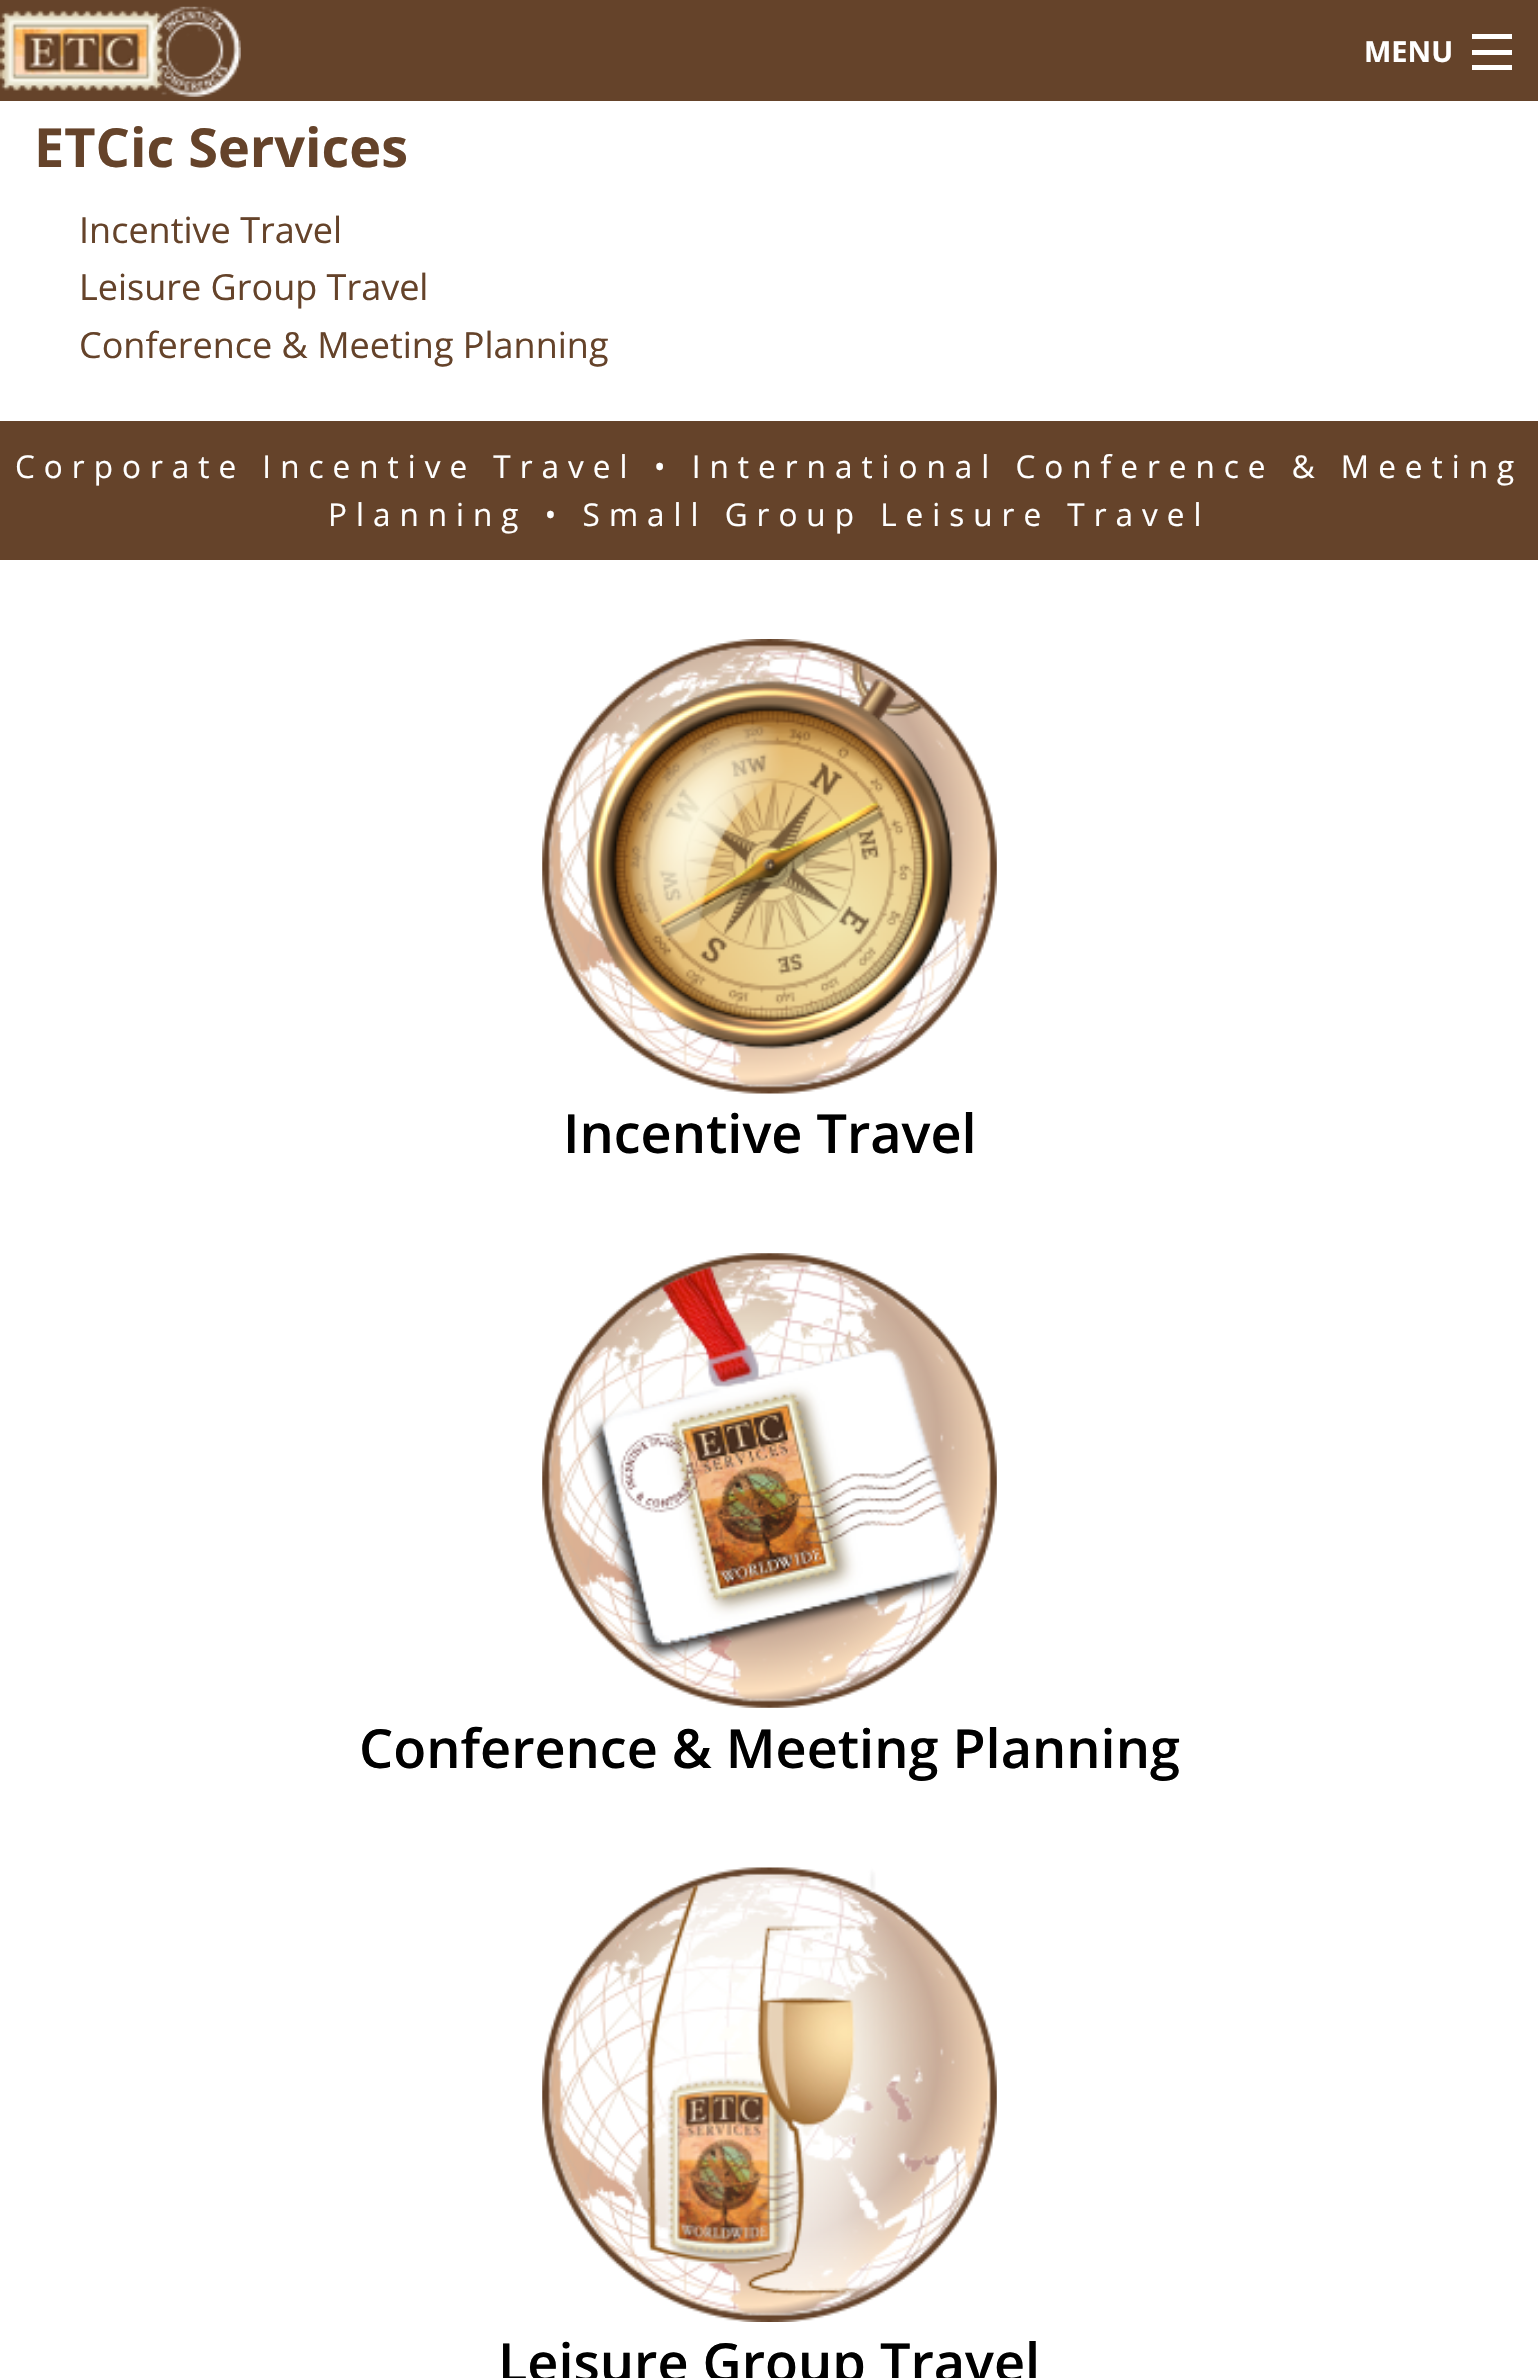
void draw(SkCanvas* canvas) {
    SkPaint paint;
    paint.setAntiAlias(true);
    auto spacedText = [&](const char* s, float x, float y, const SkFont& font, const SkPaint& ink, float letter, float word) {
        std::vector<SkGlyphID> glyphs(font.countText(s, strlen(s), SkTextEncoding::kUTF8));
        std::vector<float> xs(glyphs.size());
        font.textToGlyphs(s, strlen(s), SkTextEncoding::kUTF8, glyphs);
        font.getXPos(glyphs, xs, x);
        float extra = 0;
        for (size_t i = 0; i < glyphs.size(); i++) {
            xs[i] += extra;
            extra += letter + word * (glyphs[i] == font.unicharToGlyph(' '));
        }
        canvas->drawTextBlob(SkTextBlob::MakeFromPosHGlyphs(glyphs, xs, y, font), 0, 0, ink);
    };
    canvas->clear(0xFFFFFFFF);
    paint.setColor(0xFF65432A);
    canvas->drawRect(SkRect::MakeXYWH(0, 0, 1538, 101), paint);
    canvas->drawImageRect(SkImages::DeferredFromEncodedData(SkData::MakeFromFileName("img1.png")), SkRect::MakeXYWH(0, 6, 241, 91), SkSamplingOptions());
    SkFont font1(fontMgr->matchFamilyStyle("Open Sans", SkFontStyle::Bold()), 29);
    font1.setSubpixel(true);
    paint.setColor(0xFFFFFFFF);
    canvas->drawString("MENU", 1364, 62, font1, paint);
    canvas->drawRect(SkRect::MakeXYWH(1472, 65, 40, 5), paint);
    canvas->drawRect(SkRect::MakeXYWH(1472, 50, 40, 5), paint);
    canvas->drawRect(SkRect::MakeXYWH(1472, 34, 40, 5), paint);
    SkFont font2(fontMgr->matchFamilyStyle("Open Sans", SkFontStyle::Bold()), 54);
    font2.setSubpixel(true);
    paint.setColor(0xFF65432A);
    canvas->drawString("ETCic Services", 34, 167, font2, paint);
    SkFont font3(fontMgr->matchFamilyStyle("Open Sans", SkFontStyle::Normal()), 36);
    font3.setSubpixel(true);
    canvas->drawString("Incentive Travel", 79, 243, font3, paint);
    canvas->drawString("Leisure Group Travel", 79, 300, font3, paint);
    canvas->drawString("Conference & Meeting Planning", 79, 358, font3, paint);
    canvas->drawRect(SkRect::MakeXYWH(0, 421, 1538, 139), paint);
    SkFont font4(fontMgr->matchFamilyStyle("Open Sans", SkFontStyle::Normal()), 31.5f);
    font4.setSubpixel(true);
    paint.setColor(0xFFFFFFFF);
    spacedText("Corporate Incentive Travel • International Conference & Meeting", 15, 478, font4, paint, 9, 0);
    spacedText("Planning • Small Group Leisure Travel", 328, 526, font4, paint, 9, 0);
    canvas->drawImageRect(SkImages::DeferredFromEncodedData(SkData::MakeFromFileName("img2.png")), SkRect::MakeXYWH(542, 639, 455, 455), SkSamplingOptions());
    SkFont font5(fontMgr->matchFamilyStyle("Open Sans", SkFontStyle(600, SkFontStyle::kNormal_Width, SkFontStyle::kUpright_Slant)), 54);
    font5.setSubpixel(true);
    paint.setColor(0xFF000000);
    canvas->drawString("Incentive Travel", 563, 1153, font5, paint);
    canvas->drawImageRect(SkImages::DeferredFromEncodedData(SkData::MakeFromFileName("img3.png")), SkRect::MakeXYWH(542, 1253, 455, 455), SkSamplingOptions());
    canvas->drawString("Conference & Meeting Planning", 359, 1768, font5, paint);
    canvas->drawImageRect(SkImages::DeferredFromEncodedData(SkData::MakeFromFileName("img4.png")), SkRect::MakeXYWH(542, 1867, 455, 455), SkSamplingOptions());
    canvas->drawString("Leisure Group Travel", 498, 2382, font5, paint);
}
